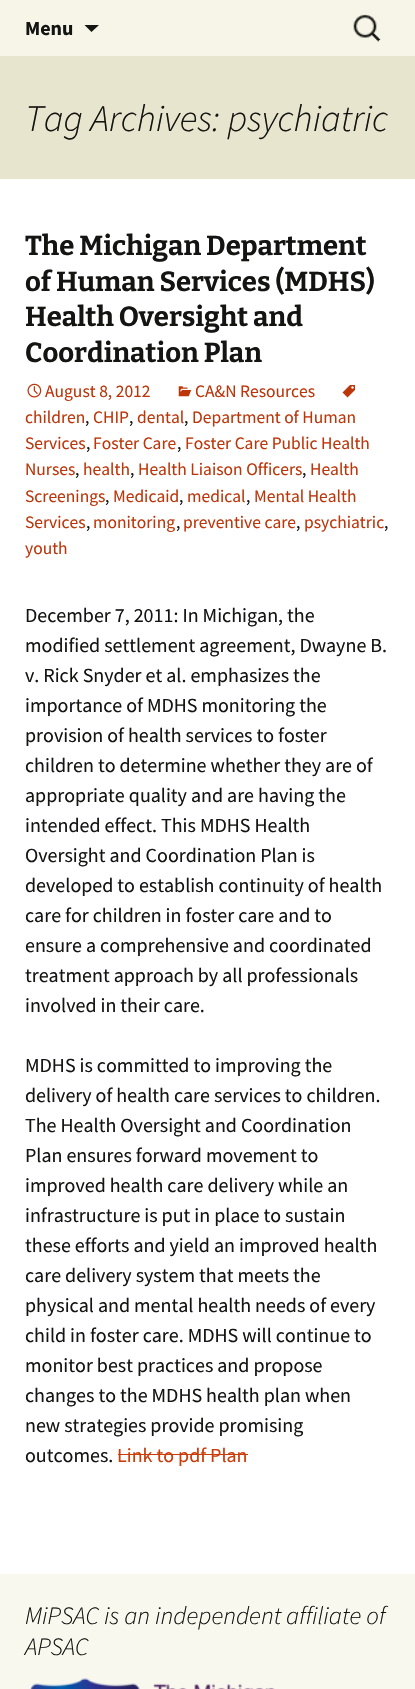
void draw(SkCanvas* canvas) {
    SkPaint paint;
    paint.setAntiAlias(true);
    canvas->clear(0xFFFFFFFF);
    paint.setColor(0xFFF7F5E7);
    canvas->drawRect(SkRect::MakeXYWH(0, 0, 415, 56), paint);
    SkFont font1(fontMgr->matchFamilyStyle("Source Sans Pro", SkFontStyle::Bold()), 20);
    font1.setSubpixel(true);
    paint.setColor(0xFF141412);
    canvas->drawString("Menu", 25, 35, font1, paint);
    canvas->drawPath(SkPathBuilder().moveTo(84.5f, 25).lineTo(99, 25).lineTo(91.5f, 32).close().detach(), paint);
    canvas->drawImageRect(SkImages::DeferredFromEncodedData(SkData::MakeFromFileName("img1.png")), SkRect::MakeXYWH(353, 14, 28, 28), SkSamplingOptions());
    paint.setColor(0xFFE8E5CE);
    canvas->drawRect(SkRect::MakeXYWH(0, 56, 415, 123), paint);
    SkFont font2(fontMgr->matchFamilyStyle("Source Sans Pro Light", SkFontStyle(300, SkFontStyle::kNormal_Width, SkFontStyle::kItalic_Slant)), 37.5f);
    font2.setSubpixel(true);
    paint.setColor(0xFF141412);
    canvas->drawString("Tag Archives: psychiatric", 25, 131, font2, paint);
    SkFont font3(fontMgr->matchFamilyStyle("Bitter", SkFontStyle(100, SkFontStyle::kNormal_Width, SkFontStyle::kUpright_Slant)), 27.5f);
    font3.setSubpixel(true);
    canvas->drawString("The Michigan Department", 25, 255, font3, paint);
    canvas->drawString("of Human Services (MDHS)", 25, 291, font3, paint);
    canvas->drawString("Health Oversight and", 25, 326, font3, paint);
    canvas->drawString("Coordination Plan", 25, 362, font3, paint);
    canvas->drawImageRect(SkImages::DeferredFromEncodedData(SkData::MakeFromFileName("img2.png")), SkRect::MakeXYWH(27, 383, 15, 15), SkSamplingOptions());
    SkFont font4(fontMgr->matchFamilyStyle("Source Sans Pro", SkFontStyle::Normal()), 17.5f);
    font4.setSubpixel(true);
    paint.setColor(0xFFBC360A);
    canvas->drawString("August 8, 2012", 45, 397, font4, paint);
    canvas->drawImageRect(SkImages::DeferredFromEncodedData(SkData::MakeFromFileName("img3.png")), SkRect::MakeXYWH(178, 386, 14, 11), SkSamplingOptions());
    canvas->drawString("CA&N Resources", 195, 397, font4, paint);
    canvas->drawImageRect(SkImages::DeferredFromEncodedData(SkData::MakeFromFileName("img4.png")), SkRect::MakeXYWH(342, 385, 13, 13), SkSamplingOptions());
    canvas->drawString("children", 25, 423, font4, paint);
    paint.setColor(0xFF141412);
    canvas->drawString(",", 85, 423, font4, paint);
    paint.setColor(0xFFBC360A);
    canvas->drawString("CHIP", 93, 423, font4, paint);
    paint.setColor(0xFF141412);
    canvas->drawString(",", 129, 423, font4, paint);
    paint.setColor(0xFFBC360A);
    canvas->drawString("dental", 137, 423, font4, paint);
    paint.setColor(0xFF141412);
    canvas->drawString(",", 184, 423, font4, paint);
    paint.setColor(0xFFBC360A);
    canvas->drawString("Department of Human", 192, 423, font4, paint);
    canvas->drawString("Services", 25, 449, font4, paint);
    paint.setColor(0xFF141412);
    canvas->drawString(",", 86, 449, font4, paint);
    paint.setColor(0xFFBC360A);
    canvas->drawString("Foster Care", 93, 449, font4, paint);
    paint.setColor(0xFF141412);
    canvas->drawString(",", 177, 449, font4, paint);
    paint.setColor(0xFFBC360A);
    canvas->drawString("Foster Care Public Health", 185, 449, font4, paint);
    canvas->drawString("Nurses", 25, 475, font4, paint);
    paint.setColor(0xFF141412);
    canvas->drawString(",", 75, 475, font4, paint);
    paint.setColor(0xFFBC360A);
    canvas->drawString("health", 83, 475, font4, paint);
    paint.setColor(0xFF141412);
    canvas->drawString(",", 130, 475, font4, paint);
    paint.setColor(0xFFBC360A);
    canvas->drawString("Health Liaison Officers", 138, 475, font4, paint);
    paint.setColor(0xFF141412);
    canvas->drawString(",", 302, 475, font4, paint);
    paint.setColor(0xFFBC360A);
    canvas->drawString("Health", 310, 475, font4, paint);
    canvas->drawString("Screenings", 25, 502, font4, paint);
    paint.setColor(0xFF141412);
    canvas->drawString(",", 105, 502, font4, paint);
    paint.setColor(0xFFBC360A);
    canvas->drawString("Medicaid", 113, 502, font4, paint);
    paint.setColor(0xFF141412);
    canvas->drawString(",", 179, 502, font4, paint);
    paint.setColor(0xFFBC360A);
    canvas->drawString("medical", 187, 502, font4, paint);
    paint.setColor(0xFF141412);
    canvas->drawString(",", 246, 502, font4, paint);
    paint.setColor(0xFFBC360A);
    canvas->drawString("Mental Health", 254, 502, font4, paint);
    canvas->drawString("Services", 25, 528, font4, paint);
    paint.setColor(0xFF141412);
    canvas->drawString(",", 86, 528, font4, paint);
    paint.setColor(0xFFBC360A);
    canvas->drawString("monitoring", 93, 528, font4, paint);
    paint.setColor(0xFF141412);
    canvas->drawString(",", 176, 528, font4, paint);
    paint.setColor(0xFFBC360A);
    canvas->drawString("preventive care", 183, 528, font4, paint);
    paint.setColor(0xFF141412);
    canvas->drawString(",", 296, 528, font4, paint);
    paint.setColor(0xFFBC360A);
    canvas->drawString("psychiatric", 304, 528, font4, paint);
    paint.setColor(0xFF141412);
    canvas->drawString(",", 384, 528, font4, paint);
    paint.setColor(0xFFBC360A);
    canvas->drawString("youth", 25, 554, font4, paint);
    SkFont font5(fontMgr->matchFamilyStyle("Source Sans Pro", SkFontStyle::Normal()), 20);
    font5.setSubpixel(true);
    paint.setColor(0xFF141412);
    canvas->drawString("December 7, 2011: In Michigan, the", 25, 622, font5, paint);
    canvas->drawString("modified settlement agreement, Dwayne B.", 25, 652, font5, paint);
    canvas->drawString("v. Rick Snyder et al. emphasizes the", 25, 682, font5, paint);
    canvas->drawString("importance of MDHS monitoring the", 25, 712, font5, paint);
    canvas->drawString("provision of health services to foster", 25, 742, font5, paint);
    canvas->drawString("children to determine whether they are of", 25, 772, font5, paint);
    canvas->drawString("appropriate quality and are having the", 25, 802, font5, paint);
    canvas->drawString("intended effect. This MDHS Health", 25, 832, font5, paint);
    canvas->drawString("Oversight and Coordination Plan is", 25, 862, font5, paint);
    canvas->drawString("developed to establish continuity of health", 25, 892, font5, paint);
    canvas->drawString("care for children in foster care and to", 25, 922, font5, paint);
    canvas->drawString("ensure a comprehensive and coordinated", 25, 952, font5, paint);
    canvas->drawString("treatment approach by all professionals", 25, 982, font5, paint);
    canvas->drawString("involved in their care.", 25, 1012, font5, paint);
    canvas->drawString("MDHS is committed to improving the", 25, 1072, font5, paint);
    canvas->drawString("delivery of health care services to children.", 25, 1102, font5, paint);
    canvas->drawString("The Health Oversight and Coordination", 25, 1132, font5, paint);
    canvas->drawString("Plan ensures forward movement to", 25, 1162, font5, paint);
    canvas->drawString("improved health care delivery while an", 25, 1192, font5, paint);
    canvas->drawString("infrastructure is put in place to sustain", 25, 1222, font5, paint);
    canvas->drawString("these efforts and yield an improved health", 25, 1252, font5, paint);
    canvas->drawString("care delivery system that meets the", 25, 1282, font5, paint);
    canvas->drawString("physical and mental health needs of every", 25, 1312, font5, paint);
    canvas->drawString("child in foster care. MDHS will continue to", 25, 1342, font5, paint);
    canvas->drawString("monitor best practices and propose", 25, 1372, font5, paint);
    canvas->drawString("changes to the MDHS health plan when", 25, 1402, font5, paint);
    canvas->drawString("new strategies provide promising", 25, 1432, font5, paint);
    canvas->drawString("outcomes.", 25, 1462, font5, paint);
    paint.setColor(0xFFCA3C08);
    canvas->drawString("Link to pdf Plan", 117, 1462, font5, paint);
    canvas->drawRect(SkRect::MakeXYWH(118, 1454, 130, 1), paint);
    paint.setColor(0xFFF9F8EE);
    canvas->drawRect(SkRect::MakeXYWH(0, 1574, 415, 115), paint);
    SkFont font6(fontMgr->matchFamilyStyle("Source Sans Pro Light", SkFontStyle(300, SkFontStyle::kNormal_Width, SkFontStyle::kItalic_Slant)), 25);
    font6.setSubpixel(true);
    paint.setColor(0xFF141412);
    canvas->drawString("MiPSAC is an independent affiliate of", 25, 1624, font6, paint);
    canvas->drawString("APSAC", 25, 1655, font6, paint);
    canvas->drawImageRect(SkImages::DeferredFromEncodedData(SkData::MakeFromFileName("img5.png")), SkRect::MakeXYWH(29, 1678, 246, 11), SkSamplingOptions());
}
